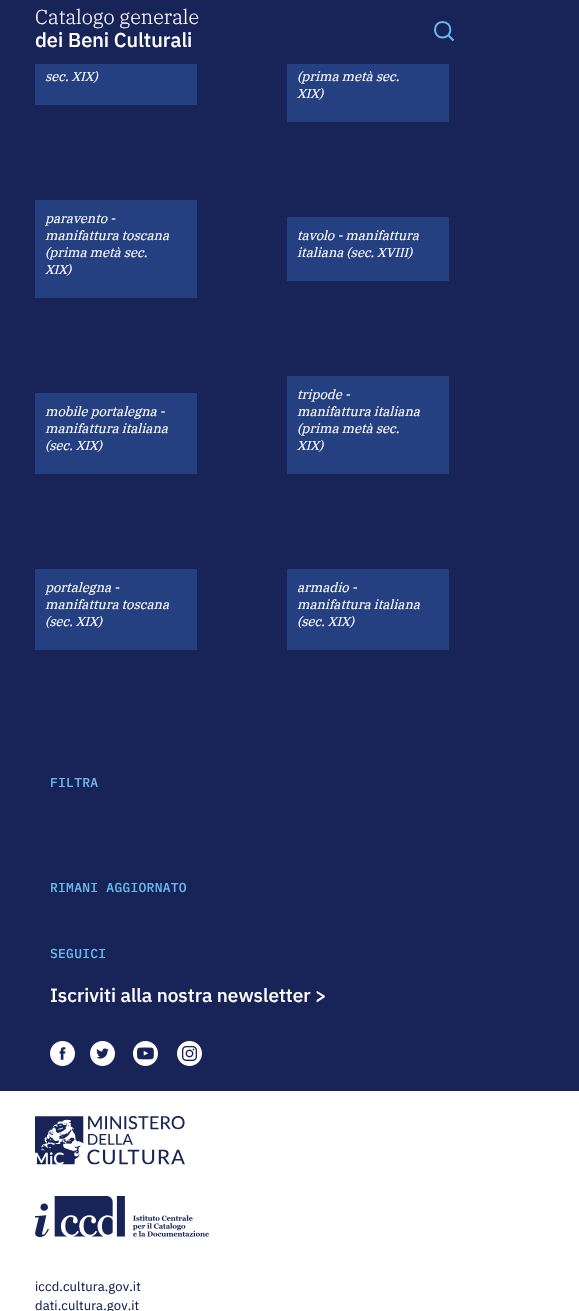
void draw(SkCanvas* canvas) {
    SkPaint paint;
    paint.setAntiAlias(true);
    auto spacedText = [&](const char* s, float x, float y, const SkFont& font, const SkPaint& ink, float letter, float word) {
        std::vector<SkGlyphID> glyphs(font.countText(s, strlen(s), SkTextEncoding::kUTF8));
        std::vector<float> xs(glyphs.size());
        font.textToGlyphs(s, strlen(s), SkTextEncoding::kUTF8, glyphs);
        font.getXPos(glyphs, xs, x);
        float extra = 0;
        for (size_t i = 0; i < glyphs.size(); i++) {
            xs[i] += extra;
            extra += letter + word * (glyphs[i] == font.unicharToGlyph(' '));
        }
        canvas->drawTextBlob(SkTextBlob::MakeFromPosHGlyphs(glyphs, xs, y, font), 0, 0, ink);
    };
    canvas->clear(0xFFFFFFFF);
    paint.setColor(0xFF182358);
    canvas->drawRect(SkRect::MakeXYWH(0, 0, 579, 1091), paint);
    SkFont font1(fontMgr->matchFamilyStyle("IBM Plex Serif", SkFontStyle(300, SkFontStyle::kNormal_Width, SkFontStyle::kUpright_Slant)), 20);
    font1.setSubpixel(true);
    paint.setColor(0xFFFFFFFF);
    canvas->drawString("Catalogo generale", 35, 24, font1, paint);
    SkFont font2(fontMgr->matchFamilyStyle("IBM Plex Sans", SkFontStyle(500, SkFontStyle::kNormal_Width, SkFontStyle::kUpright_Slant)), 20);
    font2.setSubpixel(true);
    canvas->drawString("dei Beni Culturali", 35, 47, font2, paint);
    paint.setStyle(SkPaint::kStroke_Style);
    paint.setStrokeWidth(2);
    paint.setColor(0xFF69B9EC);
    canvas->drawPath(SkPathBuilder().moveTo(442.5f, 37.5f).cubicTo(453, 37.5f, 453, 22, 442.5f, 22).cubicTo(432.5f, 22, 432.5f, 37.5f, 442.5f, 37.5f).close().moveTo(448.5f, 35.5f).lineTo(453.5f, 40.5f).detach(), paint);
    paint.setStyle(SkPaint::kFill_Style);
    paint.setColor(0xFF244080);
    canvas->drawRect(SkRect::MakeXYWH(35, 64, 162, 41), paint);
    SkFont font3(fontMgr->matchFamilyStyle("IBM Plex Serif", SkFontStyle::Italic()), 13);
    font3.setSubpixel(true);
    paint.setColor(0xFFFFFFFF);
    canvas->drawString("sec. XIX)", 45, 81, font3, paint);
    paint.setColor(0xFF244080);
    canvas->drawRect(SkRect::MakeXYWH(287, 64, 162, 58), paint);
    paint.setColor(0xFFFFFFFF);
    canvas->drawString("(prima metà sec.", 297, 81, font3, paint);
    canvas->drawString("XIX)", 297, 98, font3, paint);
    paint.setColor(0xFF244080);
    canvas->drawRect(SkRect::MakeXYWH(35, 200, 162, 98), paint);
    paint.setColor(0xFFFFFFFF);
    canvas->drawString("paravento -", 45, 223, font3, paint);
    canvas->drawString("manifattura toscana", 45, 240, font3, paint);
    canvas->drawString("(prima metà sec.", 45, 257, font3, paint);
    canvas->drawString("XIX)", 45, 274, font3, paint);
    paint.setColor(0xFF244080);
    canvas->drawRect(SkRect::MakeXYWH(287, 217, 162, 64), paint);
    paint.setColor(0xFFFFFFFF);
    canvas->drawString("tavolo - manifattura", 297, 240, font3, paint);
    canvas->drawString("italiana (sec. XVIII)", 297, 257, font3, paint);
    paint.setColor(0xFF244080);
    canvas->drawRect(SkRect::MakeXYWH(35, 393, 162, 81), paint);
    paint.setColor(0xFFFFFFFF);
    canvas->drawString("mobile portalegna -", 45, 416, font3, paint);
    canvas->drawString("manifattura italiana", 45, 433, font3, paint);
    canvas->drawString("(sec. XIX)", 45, 450, font3, paint);
    paint.setColor(0xFF244080);
    canvas->drawRect(SkRect::MakeXYWH(287, 376, 162, 98), paint);
    paint.setColor(0xFFFFFFFF);
    canvas->drawString("tripode -", 297, 399, font3, paint);
    canvas->drawString("manifattura italiana", 297, 416, font3, paint);
    canvas->drawString("(prima metà sec.", 297, 433, font3, paint);
    canvas->drawString("XIX)", 297, 450, font3, paint);
    paint.setColor(0xFF244080);
    canvas->drawRect(SkRect::MakeXYWH(35, 569, 162, 81), paint);
    paint.setColor(0xFFFFFFFF);
    canvas->drawString("portalegna -", 45, 592, font3, paint);
    canvas->drawString("manifattura toscana", 45, 609, font3, paint);
    canvas->drawString("(sec. XIX)", 45, 626, font3, paint);
    paint.setColor(0xFF244080);
    canvas->drawRect(SkRect::MakeXYWH(287, 569, 162, 81), paint);
    paint.setColor(0xFFFFFFFF);
    canvas->drawString("armadio -", 297, 592, font3, paint);
    canvas->drawString("manifattura italiana", 297, 609, font3, paint);
    canvas->drawString("(sec. XIX)", 297, 626, font3, paint);
    SkFont font4(fontMgr->matchFamilyStyle("IBM Plex Mono", SkFontStyle(500, SkFontStyle::kNormal_Width, SkFontStyle::kUpright_Slant)), 13);
    font4.setSubpixel(true);
    paint.setColor(0xFF69B9EC);
    spacedText("FILTRA", 50, 787, font4, paint, 0.25f, 0);
    spacedText("RIMANI AGGIORNATO", 50, 892, font4, paint, 0.25f, 0);
    spacedText("SEGUICI", 50, 958, font4, paint, 0.25f, 0);
    SkFont font5(fontMgr->matchFamilyStyle("IBM Plex Sans", SkFontStyle(500, SkFontStyle::kNormal_Width, SkFontStyle::kUpright_Slant)), 19);
    font5.setSubpixel(true);
    paint.setColor(0xFFFFFFFF);
    canvas->drawString("Iscriviti alla nostra newsletter >", 50, 1002, font5, paint);
    canvas->drawImageRect(SkImages::DeferredFromEncodedData(SkData::MakeFromFileName("img1.png")), SkRect::MakeXYWH(50, 1041, 25, 25), SkSamplingOptions());
    canvas->drawImageRect(SkImages::DeferredFromEncodedData(SkData::MakeFromFileName("img2.png")), SkRect::MakeXYWH(90, 1041, 25, 25), SkSamplingOptions());
    canvas->drawImageRect(SkImages::DeferredFromEncodedData(SkData::MakeFromFileName("img3.png")), SkRect::MakeXYWH(133, 1041, 25, 25), SkSamplingOptions());
    canvas->drawImageRect(SkImages::DeferredFromEncodedData(SkData::MakeFromFileName("img4.png")), SkRect::MakeXYWH(177, 1041, 25, 25), SkSamplingOptions());
    canvas->drawImageRect(SkImages::DeferredFromEncodedData(SkData::MakeFromFileName("img5.png")), SkRect::MakeXYWH(35, 1116, 150, 49), SkSamplingOptions());
    canvas->drawImageRect(SkImages::DeferredFromEncodedData(SkData::MakeFromFileName("img6.png")), SkRect::MakeXYWH(35, 1196, 174, 41), SkSamplingOptions());
    SkFont font6(fontMgr->matchFamilyStyle("IBM Plex Sans", SkFontStyle::Normal()), 13);
    font6.setSubpixel(true);
    paint.setColor(0xFF182358);
    spacedText("iccd.cultura.gov.it", 35, 1291, font6, paint, 0.1f, 0);
    spacedText("dati.cultura.gov.it", 35, 1310, font6, paint, 0.1f, 0);
}
